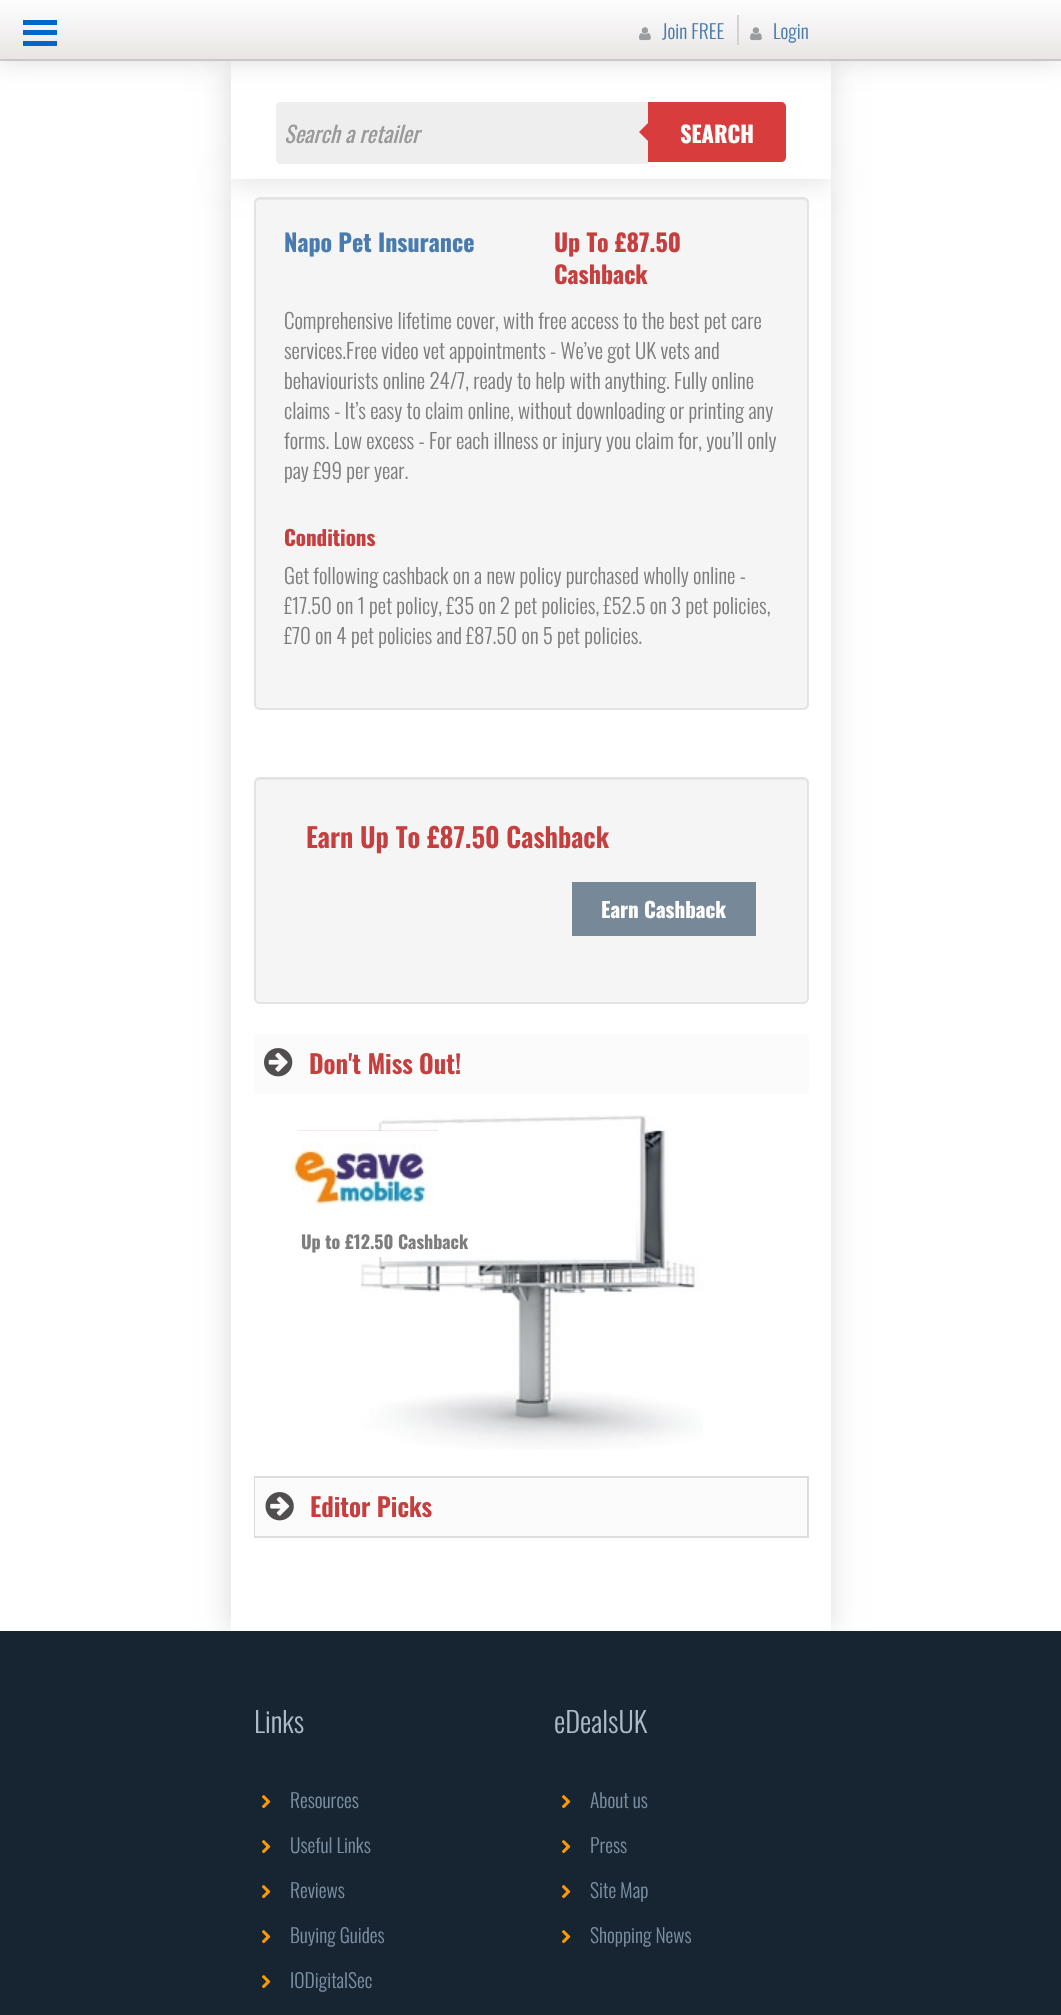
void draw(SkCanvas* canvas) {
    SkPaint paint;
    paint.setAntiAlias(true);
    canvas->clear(0xFFFFFFFF);
    paint.setColor(0xFFDBDBDB);
    paint.setMaskFilter(SkMaskFilter::MakeBlur(kNormal_SkBlurStyle, 13.5f));
    canvas->drawRect(SkRect::MakeXYWH(230, 0, 600, 50), paint);
    paint.setMaskFilter(nullptr);
    paint.setMaskFilter(SkMaskFilter::MakeBlur(kNormal_SkBlurStyle, 13.5f));
    canvas->drawRect(SkRect::MakeXYWH(230, 179, 600, 1452), paint);
    paint.setMaskFilter(nullptr);
    paint.setColor(0xFFFFFFFF);
    canvas->drawRect(SkRect::MakeXYWH(231, 179, 600, 1452), paint);
    paint.setColor(0xFFDBDBDB);
    paint.setMaskFilter(SkMaskFilter::MakeBlur(kNormal_SkBlurStyle, 13.5f));
    canvas->drawRect(SkRect::MakeXYWH(230, 60, 600, 119), paint);
    paint.setMaskFilter(nullptr);
    paint.setColor(0xFFFFFFFF);
    canvas->drawRect(SkRect::MakeXYWH(231, 61, 600, 118), paint);
    paint.setColor(0xFFDBDBDB);
    paint.setMaskFilter(SkMaskFilter::MakeBlur(kNormal_SkBlurStyle, 13.5f));
    canvas->drawRect(SkRect::MakeXYWH(-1, 0, 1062, 60), paint);
    paint.setMaskFilter(nullptr);
    {
        const SkColor colors[] = {0xFFFEFEFE, 0xFFE9E5E5};
        const float stops[] = {0, 1};
        const SkPoint ends[] = {{531, 0}, {531, 59}};
        paint.setShader(SkGradientShader::MakeLinear(ends, colors, stops, 2, SkTileMode::kClamp));
        paint.setAlpha(255);
    }
    canvas->drawRect(SkRect::MakeXYWH(0, 0, 1061, 59), paint);
    paint.setShader(nullptr);
    paint.setColor(0xFFC8C8C8);
    canvas->drawRect(SkRect::MakeXYWH(0, 59, 1061, 2), paint);
    paint.setColor(0xFFD3D3D3);
    canvas->drawRect(SkRect::MakeXYWH(737, 15, 2, 30), paint);
    canvas->drawImageRect(SkImages::DeferredFromEncodedData(SkData::MakeFromFileName("img1.png")), SkRect::MakeXYWH(639, 27, 12, 14), SkSamplingOptions());
    SkFont font1(fontMgr->matchFamilyStyle("Oswald", SkFontStyle(300, SkFontStyle::kNormal_Width, SkFontStyle::kUpright_Slant)), 19.5f);
    font1.setSubpixel(true);
    paint.setColor(0xFF487CB1);
    canvas->drawString("Join FREE", 662, 39, font1, paint);
    canvas->drawImageRect(SkImages::DeferredFromEncodedData(SkData::MakeFromFileName("img1.png")), SkRect::MakeXYWH(750, 27, 12, 14), SkSamplingOptions());
    canvas->drawString("Login", 773, 39, font1, paint);
    paint.setColor(0xFF0066CC);
    canvas->drawRect(SkRect::MakeXYWH(23, 30, 34, 5), paint);
    canvas->drawRect(SkRect::MakeXYWH(23, 20, 34, 5), paint);
    canvas->drawRect(SkRect::MakeXYWH(23, 41, 34, 5), paint);
    paint.setColor(0xFFEEEEEE);
    canvas->drawPath(SkPathBuilder().moveTo(281, 102).lineTo(648, 102).lineTo(648, 164).lineTo(281, 164).cubicTo(278, 164, 276, 162, 276, 159).lineTo(276, 107).cubicTo(276, 104, 278, 102, 281, 102).close().detach(), paint);
    SkFont font2(fontMgr->matchFamilyStyle("Oswald", SkFontStyle::Italic()), 22.5f);
    font2.setSubpixel(true);
    paint.setColor(0xFF999999);
    canvas->drawString("Search a retailer", 284, 143, font2, paint);
    paint.setColor(0xFFD83C3C);
    canvas->drawPath(SkPathBuilder().moveTo(648, 102).lineTo(781, 102).cubicTo(784, 102, 786, 104, 786, 107).lineTo(786, 157).cubicTo(786, 160, 784, 162, 781, 162).lineTo(648, 162).close().detach(), paint);
    canvas->drawPath(SkPathBuilder().moveTo(651, 120).lineTo(651, 144).lineTo(639, 132).close().detach(), paint);
    SkFont font3(fontMgr->matchFamilyStyle("Oswald", SkFontStyle::Bold()), 22.5f);
    font3.setSubpixel(true);
    paint.setColor(0xFFFFFFFF);
    canvas->drawString("SEARCH", 680, 143, font3, paint);
    paint.setColor(0xFFF5F5F5);
    canvas->drawRoundRect(SkRect::MakeXYWH(254, 197, 555, 513), 6, 6, paint);
    paint.setColor(0xFFE9E9E9);
    canvas->drawPath(SkPathBuilder().moveTo(260, 200).lineTo(802, 200).cubicTo(805, 200, 807, 202, 807, 204).cubicTo(807, 201, 805, 198, 802, 198).lineTo(260, 198).cubicTo(257, 198, 255, 201, 255, 204).cubicTo(255, 202, 257, 200, 260, 200).close().detach(), paint);
    paint.setStyle(SkPaint::kStroke_Style);
    paint.setStrokeWidth(2);
    paint.setColor(0xFFE3E3E3);
    canvas->drawRoundRect(SkRect::MakeXYWH(255, 198, 553, 511), 5, 5, paint);
    SkFont font4(fontMgr->matchFamilyStyle("Oswald", SkFontStyle::Bold()), 24);
    font4.setSubpixel(true);
    paint.setStyle(SkPaint::kFill_Style);
    paint.setColor(0xFF487CB1);
    canvas->drawString("Napo Pet Insurance", 284, 252, font4, paint);
    paint.setColor(0xFFC73E3E);
    canvas->drawString("Up To £87.50", 554, 252, font4, paint);
    canvas->drawString("Cashback", 554, 284, font4, paint);
    SkFont font5(fontMgr->matchFamilyStyle("Oswald", SkFontStyle(300, SkFontStyle::kNormal_Width, SkFontStyle::kUpright_Slant)), 21);
    font5.setSubpixel(true);
    paint.setColor(0xFF7D7D7D);
    canvas->drawString("Comprehensive lifetime cover, with free access to the best pet care", 284, 329, font5, paint);
    canvas->drawString("services.Free video vet appointments - We’ve got UK vets and", 284, 359, font5, paint);
    canvas->drawString("behaviourists online 24/7, ready to help with anything. Fully online", 284, 389, font5, paint);
    canvas->drawString("claims - It’s easy to claim online, without downloading or printing any", 284, 419, font5, paint);
    canvas->drawString("forms. Low excess - For each illness or injury you claim for, you’ll only", 284, 449, font5, paint);
    canvas->drawString("pay £99 per year.", 284, 479, font5, paint);
    SkFont font6(fontMgr->matchFamilyStyle("Oswald", SkFontStyle::Bold()), 21);
    font6.setSubpixel(true);
    paint.setColor(0xFFC73E3E);
    canvas->drawString("Conditions", 284, 546, font6, paint);
    paint.setColor(0xFF7D7D7D);
    canvas->drawString("Get following cashback on a new policy purchased wholly online -", 284, 584, font5, paint);
    canvas->drawString("£17.50 on 1 pet policy, £35 on 2 pet policies, £52.5 on 3 pet policies,", 284, 614, font5, paint);
    canvas->drawString("£70 on 4 pet policies and £87.50 on 5 pet policies.", 284, 644, font5, paint);
    paint.setColor(0xFFF5F5F5);
    canvas->drawRoundRect(SkRect::MakeXYWH(254, 777, 555, 227), 6, 6, paint);
    paint.setColor(0xFFE9E9E9);
    canvas->drawPath(SkPathBuilder().moveTo(260, 780).lineTo(802, 780).cubicTo(805, 780, 807, 782, 807, 784).cubicTo(807, 781, 805, 779, 802, 779).lineTo(260, 779).cubicTo(257, 779, 255, 781, 255, 784).cubicTo(255, 782, 257, 780, 260, 780).close().detach(), paint);
    paint.setStyle(SkPaint::kStroke_Style);
    paint.setColor(0xFFE3E3E3);
    canvas->drawRoundRect(SkRect::MakeXYWH(255, 778, 553, 225), 5, 5, paint);
    SkFont font7(fontMgr->matchFamilyStyle("Oswald", SkFontStyle(600, SkFontStyle::kNormal_Width, SkFontStyle::kUpright_Slant)), 27);
    font7.setSubpixel(true);
    paint.setStyle(SkPaint::kFill_Style);
    paint.setColor(0xFFC73E3E);
    canvas->drawString("Earn Up To £87.50 Cashback", 306, 848, font7, paint);
    paint.setColor(0xFF778899);
    canvas->drawRect(SkRect::MakeXYWH(572, 882, 184, 54), paint);
    paint.setColor(0xFFFFFFFF);
    canvas->drawString("Earn Cashback", 601, 918, font6, paint);
    paint.setColor(0xFFFBFBFB);
    canvas->drawRect(SkRect::MakeXYWH(254, 1034, 555, 60), paint);
    canvas->drawImageRect(SkImages::DeferredFromEncodedData(SkData::MakeFromFileName("img2.png")), SkRect::MakeXYWH(264, 1048, 29, 29), SkSamplingOptions());
    SkFont font8(fontMgr->matchFamilyStyle("Oswald", SkFontStyle(600, SkFontStyle::kNormal_Width, SkFontStyle::kUpright_Slant)), 25.5f);
    font8.setSubpixel(true);
    paint.setColor(0xFFC73E3E);
    canvas->drawString("Don't Miss Out!", 309, 1074, font8, paint);
    canvas->drawImageRect(SkImages::DeferredFromEncodedData(SkData::MakeFromFileName("img3.png")), SkRect::MakeXYWH(360, 1115, 343, 335), SkSamplingOptions());
    canvas->drawImageRect(SkImages::DeferredFromEncodedData(SkData::MakeFromFileName("img4.png")), SkRect::MakeXYWH(297, 1130, 141, 1), SkSamplingOptions());
    paint.setColor(0xFFFFFFFF);
    canvas->drawRect(SkRect::MakeXYWH(377, 1131, 14, 126), paint);
    canvas->drawImageRect(SkImages::DeferredFromEncodedData(SkData::MakeFromFileName("img5.png")), SkRect::MakeXYWH(290, 1130, 143, 75), SkSamplingOptions());
    SkFont font9(fontMgr->matchFamilyStyle("Oswald", SkFontStyle::Bold()), 18);
    font9.setSubpixel(true);
    paint.setColor(0xFF7D7D7D);
    canvas->drawString("Up to £12.50 Cashback", 301, 1249, font9, paint);
    paint.setStyle(SkPaint::kStroke_Style);
    paint.setColor(0xFFDDDDDD);
    canvas->drawRect(SkRect::MakeXYWH(255, 1477, 553, 60), paint);
    paint.setStyle(SkPaint::kFill_Style);
    paint.setColor(0xFFFBFBFB);
    canvas->drawRect(SkRect::MakeXYWH(255, 1478, 552, 58), paint);
    canvas->drawImageRect(SkImages::DeferredFromEncodedData(SkData::MakeFromFileName("img6.png")), SkRect::MakeXYWH(265, 1492, 29, 29), SkSamplingOptions());
    paint.setColor(0xFFC73E3E);
    canvas->drawString("Editor Picks", 310, 1517, font8, paint);
    paint.setColor(0xFF172431);
    canvas->drawRect(SkRect::MakeXYWH(0, 1631, 1061, 384), paint);
    SkFont font10(fontMgr->matchFamilyStyle("Oswald", SkFontStyle(300, SkFontStyle::kNormal_Width, SkFontStyle::kUpright_Slant)), 28.5f);
    font10.setSubpixel(true);
    paint.setColor(0xFFADBAC8);
    canvas->drawString("Links", 254, 1733, font10, paint);
    canvas->drawImageRect(SkImages::DeferredFromEncodedData(SkData::MakeFromFileName("img7.png")), SkRect::MakeXYWH(262, 1795, 9, 14), SkSamplingOptions());
    paint.setColor(0xFF7B8FA3);
    canvas->drawString("Resources", 290, 1808, font1, paint);
    canvas->drawImageRect(SkImages::DeferredFromEncodedData(SkData::MakeFromFileName("img7.png")), SkRect::MakeXYWH(262, 1840, 9, 14), SkSamplingOptions());
    canvas->drawString("Useful Links", 290, 1853, font1, paint);
    canvas->drawImageRect(SkImages::DeferredFromEncodedData(SkData::MakeFromFileName("img7.png")), SkRect::MakeXYWH(262, 1885, 9, 14), SkSamplingOptions());
    canvas->drawString("Reviews", 290, 1898, font1, paint);
    canvas->drawImageRect(SkImages::DeferredFromEncodedData(SkData::MakeFromFileName("img7.png")), SkRect::MakeXYWH(262, 1930, 9, 14), SkSamplingOptions());
    canvas->drawString("Buying Guides", 290, 1943, font1, paint);
    canvas->drawImageRect(SkImages::DeferredFromEncodedData(SkData::MakeFromFileName("img7.png")), SkRect::MakeXYWH(262, 1975, 9, 14), SkSamplingOptions());
    canvas->drawString("IODigitalSec", 290, 1988, font1, paint);
    paint.setColor(0xFFADBAC8);
    canvas->drawString("eDealsUK", 554, 1733, font10, paint);
    canvas->drawImageRect(SkImages::DeferredFromEncodedData(SkData::MakeFromFileName("img7.png")), SkRect::MakeXYWH(562, 1795, 9, 14), SkSamplingOptions());
    paint.setColor(0xFF7B8FA3);
    canvas->drawString("About us", 590, 1808, font1, paint);
    canvas->drawImageRect(SkImages::DeferredFromEncodedData(SkData::MakeFromFileName("img7.png")), SkRect::MakeXYWH(562, 1840, 9, 14), SkSamplingOptions());
    canvas->drawString("Press", 590, 1853, font1, paint);
    canvas->drawImageRect(SkImages::DeferredFromEncodedData(SkData::MakeFromFileName("img7.png")), SkRect::MakeXYWH(562, 1885, 9, 14), SkSamplingOptions());
    canvas->drawString("Site Map", 590, 1898, font1, paint);
    canvas->drawImageRect(SkImages::DeferredFromEncodedData(SkData::MakeFromFileName("img7.png")), SkRect::MakeXYWH(562, 1930, 9, 14), SkSamplingOptions());
    canvas->drawString("Shopping News", 590, 1943, font1, paint);
}
